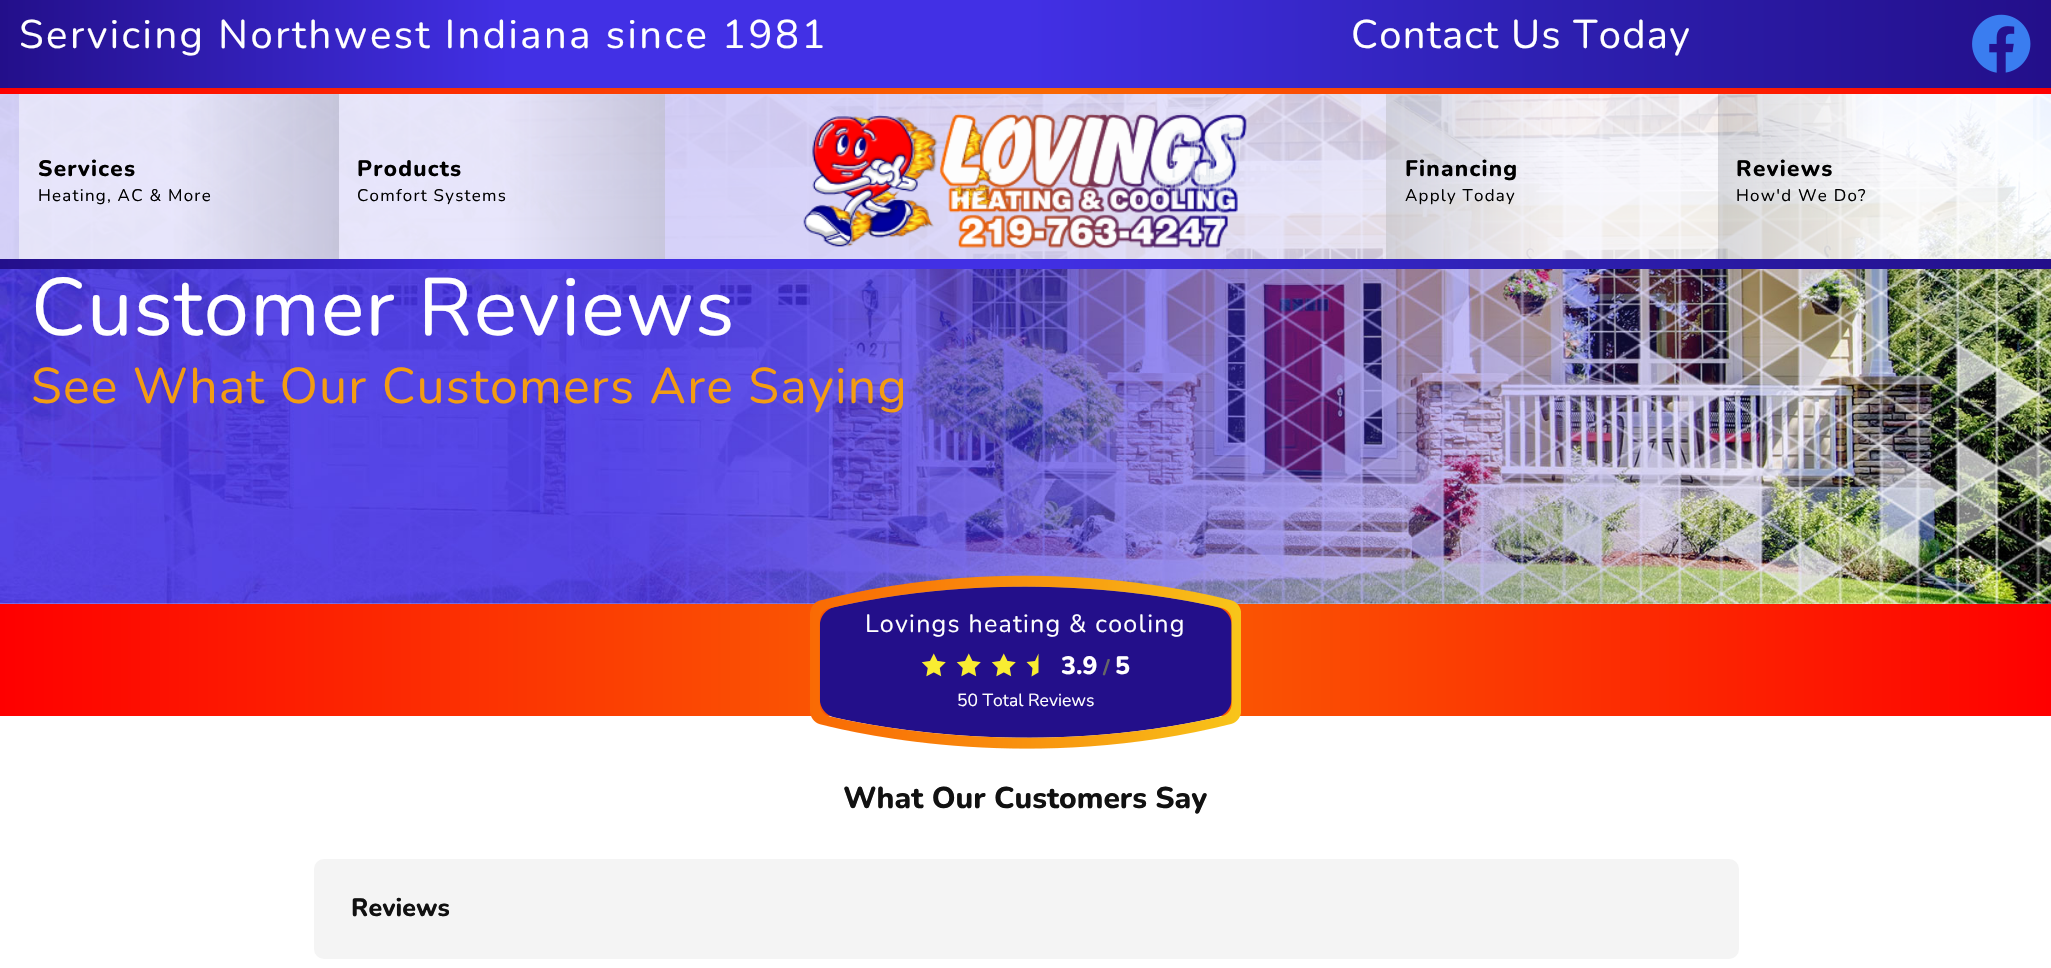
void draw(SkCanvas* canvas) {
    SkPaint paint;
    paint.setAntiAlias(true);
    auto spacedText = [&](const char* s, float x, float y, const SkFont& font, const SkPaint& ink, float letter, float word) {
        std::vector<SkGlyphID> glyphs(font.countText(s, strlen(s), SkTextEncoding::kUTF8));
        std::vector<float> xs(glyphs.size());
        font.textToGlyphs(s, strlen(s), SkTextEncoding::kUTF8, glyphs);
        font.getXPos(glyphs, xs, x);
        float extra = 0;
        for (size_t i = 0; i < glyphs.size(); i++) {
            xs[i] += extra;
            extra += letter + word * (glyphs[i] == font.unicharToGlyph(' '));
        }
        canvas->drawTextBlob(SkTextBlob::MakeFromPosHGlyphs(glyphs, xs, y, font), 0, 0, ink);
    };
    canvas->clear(0xFFFFFFFF);
    canvas->drawImageRect(SkImages::DeferredFromEncodedData(SkData::MakeFromFileName("img3.png")), SkRect::MakeXYWH(0, 94, 2051, 510), SkSamplingOptions());
    paint.setColor(0xBFFFFFFF);
    canvas->drawRect(SkRect::MakeXYWH(0, 94, 2051, 165), paint);
    {
        const SkColor colors[] = {0xFF230F8A, 0xFF4230E5, 0xFF4230E5, 0xFF2E20B2, 0xFF230F8A};
        const float stops[] = {0, 0.25f, 0.5f, 0.75f, 1};
        const SkPoint ends[] = {{0, 44}, {2051, 44}};
        paint.setShader(SkGradientShader::MakeLinear(ends, colors, stops, 5, SkTileMode::kClamp));
        paint.setAlpha(255);
    }
    canvas->drawRect(SkRect::MakeXYWH(0, 0, 2051, 88), paint);
    SkFont font1(fontMgr->matchFamilyStyle("Nunito", SkFontStyle::Normal()), 40);
    font1.setSubpixel(true);
    paint.setShader(nullptr);
    paint.setColor(0xFFFFFFFF);
    spacedText("Servicing Northwest Indiana since 1981", 19, 48, font1, paint, 2.5f, 0);
    spacedText("Contact Us Today", 1351, 48, font1, paint, 1.25f, 0);
    canvas->drawImageRect(SkImages::DeferredFromEncodedData(SkData::MakeFromFileName("img1.png")), SkRect::MakeXYWH(1972, 14, 59, 59), SkSamplingOptions());
    {
        const SkColor colors[] = {0xFFFE0000, 0xFFF96A04, 0xFFFE0000};
        const float stops[] = {0, 0.5f, 1};
        const SkPoint ends[] = {{0, 91}, {2051, 91}};
        paint.setShader(SkGradientShader::MakeLinear(ends, colors, stops, 3, SkTileMode::kClamp));
        paint.setAlpha(255);
    }
    canvas->drawRect(SkRect::MakeXYWH(0, 88, 2051, 6), paint);
    paint.setShader(nullptr);
    paint.setColor(0x1AFFFFFF);
    canvas->drawRect(SkRect::MakeXYWH(19, 94, 646, 1), paint);
    {
        const SkColor colors[] = {0x73FFFFFF, 0x73FFFFFF, 0x73B7B9BB};
        const float stops[] = {0, 0.5f, 1};
        const SkPoint ends[] = {{19, 176}, {339, 176}};
        paint.setShader(SkGradientShader::MakeLinear(ends, colors, stops, 3, SkTileMode::kClamp));
        paint.setAlpha(255);
    }
    canvas->drawRect(SkRect::MakeXYWH(19, 94, 320, 165), paint);
    SkFont font2(fontMgr->matchFamilyStyle("Nunito", SkFontStyle(800, SkFontStyle::kNormal_Width, SkFontStyle::kUpright_Slant)), 22.5f);
    font2.setSubpixel(true);
    paint.setShader(nullptr);
    paint.setColor(0xFF000000);
    spacedText("Services", 38, 176, font2, paint, 1.25f, 0);
    SkFont font3(fontMgr->matchFamilyStyle("Nunito", SkFontStyle::Normal()), 16.9f);
    font3.setSubpixel(true);
    spacedText("Heating, AC & More", 38, 201, font3, paint, 1.25f, 0);
    {
        const SkColor colors[] = {0x73FFFFFF, 0x73FFFFFF, 0x73B7B9BB};
        const float stops[] = {0, 0.5f, 1};
        const SkPoint ends[] = {{339, 176}, {665, 176}};
        paint.setShader(SkGradientShader::MakeLinear(ends, colors, stops, 3, SkTileMode::kClamp));
        paint.setAlpha(255);
    }
    canvas->drawRect(SkRect::MakeXYWH(339, 94, 326, 165), paint);
    paint.setShader(nullptr);
    paint.setColor(0xFF000000);
    spacedText("Products", 357, 176, font2, paint, 1.25f, 0);
    spacedText("Comfort Systems", 357, 201, font3, paint, 1.25f, 0);
    canvas->drawImageRect(SkImages::DeferredFromEncodedData(SkData::MakeFromFileName("img2.png")), SkRect::MakeXYWH(803, 113, 444, 136), SkSamplingOptions());
    paint.setColor(0x1AFFFFFF);
    canvas->drawRect(SkRect::MakeXYWH(1386, 94, 458, 1), paint);
    {
        const SkColor colors[] = {0x73B7B9BB, 0x73FFFFFF, 0x73FFFFFF};
        const float stops[] = {0, 0.5f, 1};
        const SkPoint ends[] = {{1386, 176}, {1718, 176}};
        paint.setShader(SkGradientShader::MakeLinear(ends, colors, stops, 3, SkTileMode::kClamp));
        paint.setAlpha(255);
    }
    canvas->drawRect(SkRect::MakeXYWH(1386, 94, 332, 165), paint);
    paint.setShader(nullptr);
    paint.setColor(0xFF000000);
    spacedText("Financing", 1405, 176, font2, paint, 1.25f, 0);
    spacedText("Apply Today", 1405, 201, font3, paint, 1.25f, 0);
    {
        const SkColor colors[] = {0x73B7B9BB, 0x73FFFFFF, 0x73FFFFFF};
        const float stops[] = {0, 0.5f, 1};
        const SkPoint ends[] = {{1718, 176}, {2033, 176}};
        paint.setShader(SkGradientShader::MakeLinear(ends, colors, stops, 3, SkTileMode::kClamp));
        paint.setAlpha(255);
    }
    canvas->drawRect(SkRect::MakeXYWH(1718, 94, 315, 165), paint);
    paint.setShader(nullptr);
    paint.setColor(0xFF000000);
    spacedText("Reviews", 1736, 176, font2, paint, 1.25f, 0);
    spacedText("How'd We Do?", 1736, 201, font3, paint, 1.25f, 0);
    {
        const SkColor colors[] = {0xFF230F8A, 0xFF4230E5, 0xFF4230E5, 0xFF2E20B2, 0xFF230F8A};
        const float stops[] = {0, 0.25f, 0.5f, 0.75f, 1};
        const SkPoint ends[] = {{0, 264}, {2051, 264}};
        paint.setShader(SkGradientShader::MakeLinear(ends, colors, stops, 5, SkTileMode::kClamp));
        paint.setAlpha(255);
    }
    canvas->drawRect(SkRect::MakeXYWH(0, 259, 2051, 10), paint);
    SkFont font4(fontMgr->matchFamilyStyle("Nunito", SkFontStyle::Normal()), 81.25f);
    font4.setSubpixel(true);
    paint.setShader(nullptr);
    paint.setColor(0xFFFFFFFF);
    spacedText("Customer Reviews", 31, 335, font4, paint, 1.25f, 0);
    SkFont font5(fontMgr->matchFamilyStyle("Nunito", SkFontStyle::Normal()), 50);
    font5.setSubpixel(true);
    paint.setColor(0xFFF39C12);
    spacedText("See What Our Customers Are Saying", 31, 403, font5, paint, 1.25f, 0);
    {
        const SkColor colors[] = {0xFFFE0000, 0xFFF96A04, 0xFFFE0000};
        const float stops[] = {0, 0.5f, 1};
        const SkPoint ends[] = {{0, 660}, {2051, 660}};
        paint.setShader(SkGradientShader::MakeLinear(ends, colors, stops, 3, SkTileMode::kClamp));
        paint.setAlpha(255);
    }
    canvas->drawRect(SkRect::MakeXYWH(0, 604, 2051, 112), paint);
    canvas->drawImageRect(SkImages::DeferredFromEncodedData(SkData::MakeFromFileName("img4.png")), SkRect::MakeXYWH(810, 575, 431, 174), SkSamplingOptions());
    SkFont font6(fontMgr->matchFamilyStyle("Nunito", SkFontStyle::Normal()), 25);
    font6.setSubpixel(true);
    paint.setShader(nullptr);
    paint.setColor(0xFFFFFFFF);
    spacedText("Lovings heating & cooling", 865, 632, font6, paint, 1.25f, 0);
    canvas->drawImageRect(SkImages::DeferredFromEncodedData(SkData::MakeFromFileName("img5.png")), SkRect::MakeXYWH(921, 653, 25, 24), SkSamplingOptions());
    canvas->drawImageRect(SkImages::DeferredFromEncodedData(SkData::MakeFromFileName("img5.png")), SkRect::MakeXYWH(956, 653, 25, 24), SkSamplingOptions());
    canvas->drawImageRect(SkImages::DeferredFromEncodedData(SkData::MakeFromFileName("img5.png")), SkRect::MakeXYWH(991, 653, 25, 24), SkSamplingOptions());
    paint.setColor(0xFFF9ED32);
    canvas->drawPath(SkPathBuilder().moveTo(1035, 661).lineTo(1026.5f, 662).lineTo(1032.5f, 668).lineTo(1031.5f, 676.5f).lineTo(1038.5f, 672.5f).lineTo(1038.5f, 653.5f).close().detach(), paint);
    SkFont font7(fontMgr->matchFamilyStyle("Nunito", SkFontStyle(800, SkFontStyle::kNormal_Width, SkFontStyle::kUpright_Slant)), 25);
    font7.setSubpixel(true);
    paint.setColor(0xFFFFFFFF);
    canvas->drawString("3.9", 1061, 674, font7, paint);
    SkFont font8(fontMgr->matchFamilyStyle("Nunito", SkFontStyle(800, SkFontStyle::kNormal_Width, SkFontStyle::kUpright_Slant)), 20);
    font8.setSubpixel(true);
    paint.setColor(0xFF666666);
    canvas->drawString("/", 1103, 674, font8, paint);
    paint.setColor(0xFFFFFFFF);
    canvas->drawString("5", 1115, 674, font7, paint);
    SkFont font9(fontMgr->matchFamilyStyle("Nunito", SkFontStyle::Normal()), 17.5f);
    font9.setSubpixel(true);
    canvas->drawString("50 Total Reviews", 957, 706, font9, paint);
    SkFont font10(fontMgr->matchFamilyStyle("Nunito", SkFontStyle(800, SkFontStyle::kNormal_Width, SkFontStyle::kUpright_Slant)), 30);
    font10.setSubpixel(true);
    paint.setColor(0xFF111111);
    canvas->drawString("What Our Customers Say", 843, 808, font10, paint);
    paint.setColor(0xFFF4F4F4);
    canvas->drawRoundRect(SkRect::MakeXYWH(314, 859, 1425, 100), 10, 10, paint);
    paint.setColor(0xFF111111);
    canvas->drawString("Reviews", 351, 916, font7, paint);
}
